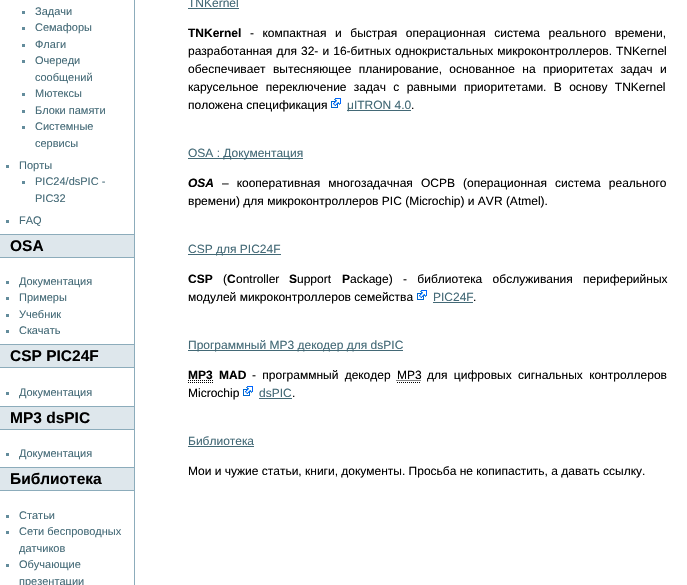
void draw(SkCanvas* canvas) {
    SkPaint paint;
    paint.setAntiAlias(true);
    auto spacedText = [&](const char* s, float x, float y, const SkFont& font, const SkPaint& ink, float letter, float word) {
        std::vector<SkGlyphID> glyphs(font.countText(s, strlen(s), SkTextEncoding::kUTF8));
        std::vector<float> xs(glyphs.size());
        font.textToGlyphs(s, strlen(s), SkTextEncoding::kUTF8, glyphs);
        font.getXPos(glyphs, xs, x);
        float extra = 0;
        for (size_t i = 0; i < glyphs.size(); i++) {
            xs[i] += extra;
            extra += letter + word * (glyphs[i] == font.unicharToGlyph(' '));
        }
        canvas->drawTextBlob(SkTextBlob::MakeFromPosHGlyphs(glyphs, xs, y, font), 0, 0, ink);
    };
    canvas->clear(0xFFFFFFFF);
    paint.setColor(0xFF8CACBB);
    canvas->drawRect(SkRect::MakeXYWH(134, 0, 1, 585), paint);
    paint.setColor(0xFF638C9C);
    canvas->drawRect(SkRect::MakeXYWH(22, 11, 3, 3), paint);
    SkFont font1(fontMgr->matchFamilyStyle("Liberation Sans", SkFontStyle::Normal()), 11);
    font1.setSubpixel(true);
    paint.setColor(0xFF436976);
    canvas->drawString("Задачи", 35, 15, font1, paint);
    paint.setColor(0xFF638C9C);
    canvas->drawRect(SkRect::MakeXYWH(22, 27, 3, 3), paint);
    paint.setColor(0xFF436976);
    canvas->drawString("Семафоры", 35, 31, font1, paint);
    paint.setColor(0xFF638C9C);
    canvas->drawRect(SkRect::MakeXYWH(22, 44, 3, 3), paint);
    paint.setColor(0xFF436976);
    canvas->drawString("Флаги", 35, 48, font1, paint);
    paint.setColor(0xFF638C9C);
    canvas->drawRect(SkRect::MakeXYWH(22, 60, 3, 3), paint);
    paint.setColor(0xFF436976);
    canvas->drawString("Очереди", 35, 64, font1, paint);
    canvas->drawString("сообщений", 35, 81, font1, paint);
    paint.setColor(0xFF638C9C);
    canvas->drawRect(SkRect::MakeXYWH(22, 93, 3, 3), paint);
    paint.setColor(0xFF436976);
    canvas->drawString("Мютексы", 35, 97, font1, paint);
    paint.setColor(0xFF638C9C);
    canvas->drawRect(SkRect::MakeXYWH(22, 110, 3, 3), paint);
    paint.setColor(0xFF436976);
    canvas->drawString("Блоки памяти", 35, 114, font1, paint);
    paint.setColor(0xFF638C9C);
    canvas->drawRect(SkRect::MakeXYWH(22, 126, 3, 3), paint);
    paint.setColor(0xFF436976);
    canvas->drawString("Системные", 35, 130, font1, paint);
    canvas->drawString("сервисы", 35, 147, font1, paint);
    paint.setColor(0xFF638C9C);
    canvas->drawRect(SkRect::MakeXYWH(6, 165, 3, 3), paint);
    paint.setColor(0xFF436976);
    canvas->drawString("Порты", 19, 169, font1, paint);
    paint.setColor(0xFF638C9C);
    canvas->drawRect(SkRect::MakeXYWH(22, 181, 3, 3), paint);
    paint.setColor(0xFF436976);
    canvas->drawString("PIC24/dsPIC -", 35, 185, font1, paint);
    canvas->drawString("PIC32", 35, 202, font1, paint);
    paint.setColor(0xFF638C9C);
    canvas->drawRect(SkRect::MakeXYWH(6, 220, 3, 3), paint);
    paint.setColor(0xFF436976);
    canvas->drawString("FAQ", 19, 224, font1, paint);
    paint.setColor(0xFFDEE7EC);
    canvas->drawRect(SkRect::MakeXYWH(0, 235, 134, 22), paint);
    paint.setColor(0xFF8CACBB);
    canvas->drawRect(SkRect::MakeXYWH(0, 234, 135, 1), paint);
    canvas->drawRect(SkRect::MakeXYWH(0, 257, 135, 1), paint);
    SkFont font2(fontMgr->matchFamilyStyle("Liberation Sans", SkFontStyle::Bold()), 15.5f);
    font2.setSubpixel(true);
    paint.setColor(0xFF000000);
    canvas->drawString("OSA", 10, 251, font2, paint);
    paint.setColor(0xFF638C9C);
    canvas->drawRect(SkRect::MakeXYWH(6, 281, 3, 3), paint);
    paint.setColor(0xFF436976);
    canvas->drawString("Документация", 19, 285, font1, paint);
    paint.setColor(0xFF638C9C);
    canvas->drawRect(SkRect::MakeXYWH(6, 297, 3, 3), paint);
    paint.setColor(0xFF436976);
    canvas->drawString("Примеры", 19, 301, font1, paint);
    paint.setColor(0xFF638C9C);
    canvas->drawRect(SkRect::MakeXYWH(6, 314, 3, 3), paint);
    paint.setColor(0xFF436976);
    canvas->drawString("Учебник", 19, 318, font1, paint);
    paint.setColor(0xFF638C9C);
    canvas->drawRect(SkRect::MakeXYWH(6, 330, 3, 3), paint);
    paint.setColor(0xFF436976);
    canvas->drawString("Скачать", 19, 334, font1, paint);
    paint.setColor(0xFFDEE7EC);
    canvas->drawRect(SkRect::MakeXYWH(0, 345, 134, 22), paint);
    paint.setColor(0xFF8CACBB);
    canvas->drawRect(SkRect::MakeXYWH(0, 344, 135, 1), paint);
    canvas->drawRect(SkRect::MakeXYWH(0, 367, 135, 1), paint);
    paint.setColor(0xFF000000);
    canvas->drawString("CSP PIC24F", 10, 361, font2, paint);
    paint.setColor(0xFF638C9C);
    canvas->drawRect(SkRect::MakeXYWH(6, 392, 3, 3), paint);
    paint.setColor(0xFF436976);
    canvas->drawString("Документация", 19, 396, font1, paint);
    paint.setColor(0xFFDEE7EC);
    canvas->drawRect(SkRect::MakeXYWH(0, 407, 134, 22), paint);
    paint.setColor(0xFF8CACBB);
    canvas->drawRect(SkRect::MakeXYWH(0, 406, 135, 1), paint);
    canvas->drawRect(SkRect::MakeXYWH(0, 429, 135, 1), paint);
    paint.setColor(0xFF000000);
    canvas->drawString("MP3 dsPIC", 10, 423, font2, paint);
    paint.setColor(0xFF638C9C);
    canvas->drawRect(SkRect::MakeXYWH(6, 453, 3, 3), paint);
    paint.setColor(0xFF436976);
    canvas->drawString("Документация", 19, 457, font1, paint);
    paint.setColor(0xFFDEE7EC);
    canvas->drawRect(SkRect::MakeXYWH(0, 468, 134, 22), paint);
    paint.setColor(0xFF8CACBB);
    canvas->drawRect(SkRect::MakeXYWH(0, 467, 135, 1), paint);
    canvas->drawRect(SkRect::MakeXYWH(0, 490, 135, 1), paint);
    paint.setColor(0xFF000000);
    canvas->drawString("Библиотека", 10, 484, font2, paint);
    paint.setColor(0xFF638C9C);
    canvas->drawRect(SkRect::MakeXYWH(6, 515, 3, 3), paint);
    paint.setColor(0xFF436976);
    canvas->drawString("Статьи", 19, 519, font1, paint);
    paint.setColor(0xFF638C9C);
    canvas->drawRect(SkRect::MakeXYWH(6, 531, 3, 3), paint);
    paint.setColor(0xFF436976);
    canvas->drawString("Сети беспроводных", 19, 535, font1, paint);
    canvas->drawString("датчиков", 19, 552, font1, paint);
    paint.setColor(0xFF638C9C);
    canvas->drawRect(SkRect::MakeXYWH(6, 564, 3, 3), paint);
    paint.setColor(0xFF436976);
    canvas->drawString("Обучающие", 19, 568, font1, paint);
    canvas->drawString("презентации", 19, 585, font1, paint);
    SkFont font3(fontMgr->matchFamilyStyle("Liberation Sans", SkFontStyle::Normal()), 12);
    font3.setSubpixel(true);
    canvas->drawString("TNKernel", 188, 7, font3, paint);
    canvas->drawRect(SkRect::MakeXYWH(188, 8, 51, 1), paint);
    SkFont font4(fontMgr->matchFamilyStyle("Liberation Sans", SkFontStyle::Bold()), 12);
    font4.setSubpixel(true);
    paint.setColor(0xFF000000);
    canvas->drawString("TNKernel", 188, 37, font4, paint);
    spacedText("- компактная и быстрая операционная система реального времени,", 250, 37, font3, paint, 0, 5.25f);
    spacedText("разработанная для 32- и 16-битных однокристальных микроконтроллеров. TNKernel", 188, 55, font3, paint, 0, 0.75f);
    spacedText("обеспечивает вытесняющее планирование, основанное на приоритетах задач и", 188, 73, font3, paint, 0, 4);
    spacedText("карусельное переключение задач с равными приоритетами. В основу TNKernel", 188, 91, font3, paint, 0, 4);
    canvas->drawString("положена спецификация", 188, 109, font3, paint);
    canvas->drawImageRect(SkImages::DeferredFromEncodedData(SkData::MakeFromFileName("img1.png")), SkRect::MakeXYWH(331, 98, 10, 10), SkSamplingOptions());
    paint.setColor(0xFF436976);
    canvas->drawRect(SkRect::MakeXYWH(347, 110, 64, 1), paint);
    canvas->drawString("μITRON 4.0", 347, 109, font3, paint);
    paint.setColor(0xFF000000);
    canvas->drawString(".", 411, 109, font3, paint);
    paint.setColor(0xFF436976);
    canvas->drawRect(SkRect::MakeXYWH(188, 158, 115, 1), paint);
    canvas->drawString("OSA : Документация", 188, 157, font3, paint);
    SkFont font5(fontMgr->matchFamilyStyle("Liberation Sans", SkFontStyle::BoldItalic()), 12);
    font5.setSubpixel(true);
    paint.setColor(0xFF000000);
    canvas->drawString("OSA", 188, 187, font5, paint);
    spacedText("– кооперативная многозадачная ОСРВ (операционная система реального", 222, 187, font3, paint, 0, 4.75f);
    canvas->drawString("времени) для микроконтроллеров PIC (Microchip) и AVR (Atmel).", 188, 205, font3, paint);
    paint.setColor(0xFF436976);
    canvas->drawRect(SkRect::MakeXYWH(188, 254, 93, 1), paint);
    canvas->drawString("СSP для PIC24F", 188, 253, font3, paint);
    paint.setColor(0xFF000000);
    canvas->drawString("СSP", 188, 283, font4, paint);
    canvas->drawString("(", 223, 283, font3, paint);
    canvas->drawString("C", 227, 283, font4, paint);
    canvas->drawString("ontroller", 236, 283, font3, paint);
    canvas->drawString("S", 289, 283, font4, paint);
    canvas->drawString("upport", 297, 283, font3, paint);
    canvas->drawString("P", 342, 283, font4, paint);
    spacedText("ackage) - библиотека обслуживания периферийных", 350, 283, font3, paint, 0, 7);
    canvas->drawString("модулей микроконтроллеров семейства", 188, 301, font3, paint);
    canvas->drawImageRect(SkImages::DeferredFromEncodedData(SkData::MakeFromFileName("img1.png")), SkRect::MakeXYWH(417, 290, 10, 10), SkSamplingOptions());
    paint.setColor(0xFF436976);
    canvas->drawString("PIC24F", 433, 301, font3, paint);
    canvas->drawRect(SkRect::MakeXYWH(433, 302, 40, 1), paint);
    paint.setColor(0xFF000000);
    canvas->drawString(".", 473, 301, font3, paint);
    paint.setColor(0xFF436976);
    canvas->drawRect(SkRect::MakeXYWH(188, 350, 215, 1), paint);
    canvas->drawString("Программный MP3 декодер для dsPIC", 188, 349, font3, paint);
    paint.setColor(0xFF000000);
    canvas->drawString("MP3", 188, 379, font4, paint);
    paint.setStyle(SkPaint::kStroke_Style);
    paint.setStrokeWidth(1);
    paint.setPathEffect(SkDashPathEffect::Make({{1, 1}}, 0));
    canvas->drawPath(SkPathBuilder().moveTo(188, 382.5f).lineTo(213, 382.5f).moveTo(188, 380.5f).lineTo(213, 380.5f).detach(), paint);
    paint.setPathEffect(nullptr);
    paint.setStyle(SkPaint::kFill_Style);
    canvas->drawString("MAD", 219, 379, font4, paint);
    spacedText("- программный декодер", 252, 379, font3, paint, 0, 3);
    canvas->drawString("MP3", 397, 379, font3, paint);
    paint.setStyle(SkPaint::kStroke_Style);
    paint.setPathEffect(SkDashPathEffect::Make({{1, 1}}, 0));
    canvas->drawPath(SkPathBuilder().moveTo(397, 382.5f).lineTo(421, 382.5f).moveTo(396.5f, 380.5f).lineTo(421, 380.5f).detach(), paint);
    paint.setPathEffect(nullptr);
    paint.setStyle(SkPaint::kFill_Style);
    spacedText("для цифровых сигнальных контроллеров", 427, 379, font3, paint, 0, 3);
    canvas->drawString("Microchip", 188, 397, font3, paint);
    canvas->drawImageRect(SkImages::DeferredFromEncodedData(SkData::MakeFromFileName("img1.png")), SkRect::MakeXYWH(243, 386, 10, 10), SkSamplingOptions());
    paint.setColor(0xFF436976);
    canvas->drawString("dsPIC", 259, 397, font3, paint);
    canvas->drawRect(SkRect::MakeXYWH(259, 398, 33, 1), paint);
    paint.setColor(0xFF000000);
    canvas->drawString(".", 292, 397, font3, paint);
    paint.setColor(0xFF436976);
    canvas->drawString("Библиотека", 188, 445, font3, paint);
    canvas->drawRect(SkRect::MakeXYWH(188, 446, 66, 1), paint);
    paint.setColor(0xFF000000);
    canvas->drawString("Мои и чужие статьи, книги, документы. Просьба не копипастить, а давать ссылку.", 188, 475, font3, paint);
}
